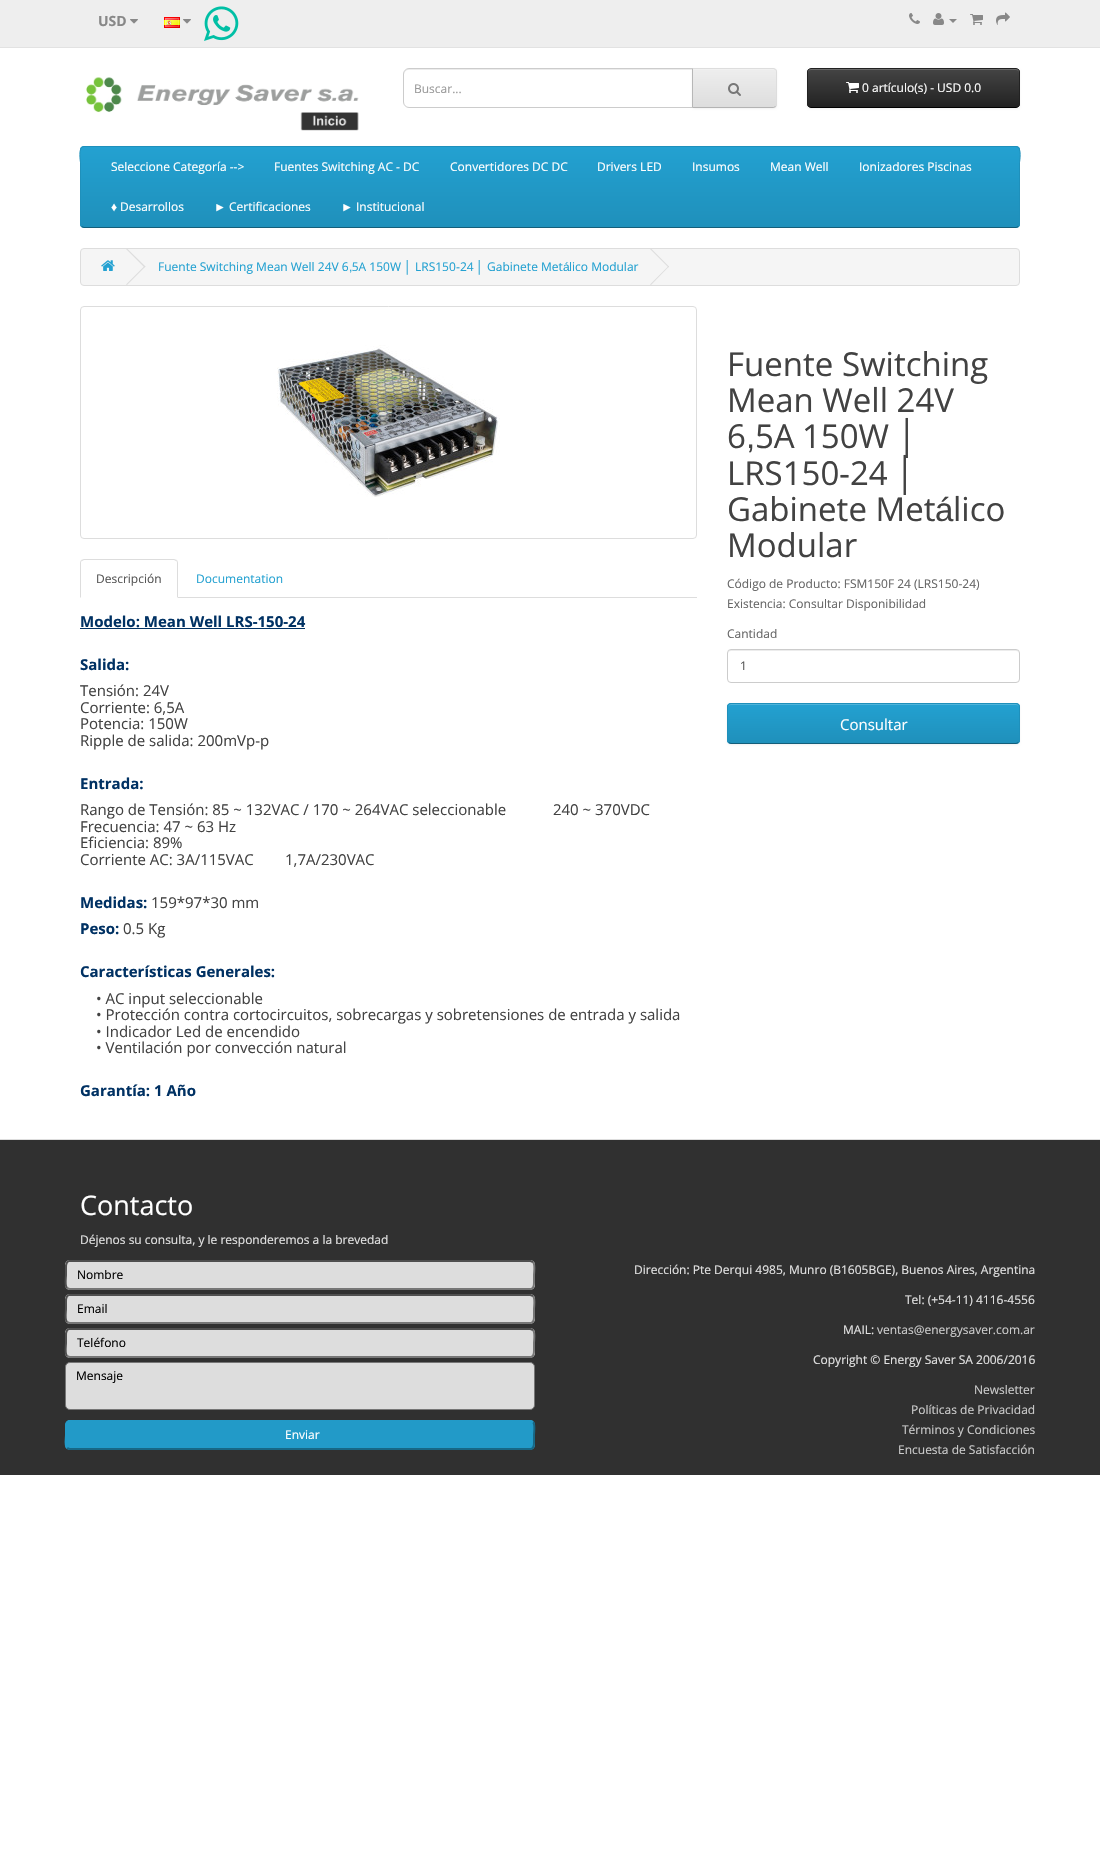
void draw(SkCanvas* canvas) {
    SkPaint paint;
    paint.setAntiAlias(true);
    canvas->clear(0xFFFFFFFF);
    paint.setColor(0xFFEEEEEE);
    canvas->drawRect(SkRect::MakeXYWH(0, 0, 1100, 47), paint);
    paint.setColor(0xFFE2E2E2);
    canvas->drawRect(SkRect::MakeXYWH(0, 47, 1100, 1), paint);
    SkFont font1(fontMgr->matchFamilyStyle("Open Sans", SkFontStyle::Bold()), 14);
    font1.setSubpixel(true);
    paint.setColor(0xFF888888);
    canvas->drawString("USD", 98, 26, font1, paint);
    canvas->drawImageRect(SkImages::DeferredFromEncodedData(SkData::MakeFromFileName("img1.png")), SkRect::MakeXYWH(130, 19, 8, 5), SkSamplingOptions());
    canvas->drawImageRect(SkImages::DeferredFromEncodedData(SkData::MakeFromFileName("img2.png")), SkRect::MakeXYWH(164, 17, 16, 11), SkSamplingOptions());
    canvas->drawImageRect(SkImages::DeferredFromEncodedData(SkData::MakeFromFileName("img1.png")), SkRect::MakeXYWH(183, 19, 8, 5), SkSamplingOptions());
    canvas->drawImageRect(SkImages::DeferredFromEncodedData(SkData::MakeFromFileName("img3.png")), SkRect::MakeXYWH(204, 6, 35, 35), SkSamplingOptions());
    canvas->drawImageRect(SkImages::DeferredFromEncodedData(SkData::MakeFromFileName("img4.png")), SkRect::MakeXYWH(909, 13, 11, 11), SkSamplingOptions());
    canvas->drawImageRect(SkImages::DeferredFromEncodedData(SkData::MakeFromFileName("img5.png")), SkRect::MakeXYWH(933, 13, 11, 12), SkSamplingOptions());
    canvas->drawPath(SkPathBuilder().moveTo(949, 19).lineTo(957, 19).lineTo(953, 23).close().detach(), paint);
    canvas->drawImageRect(SkImages::DeferredFromEncodedData(SkData::MakeFromFileName("img6.png")), SkRect::MakeXYWH(970, 14, 13, 11), SkSamplingOptions());
    canvas->drawImageRect(SkImages::DeferredFromEncodedData(SkData::MakeFromFileName("img7.png")), SkRect::MakeXYWH(996, 12, 14, 13), SkSamplingOptions());
    canvas->drawImageRect(SkImages::DeferredFromEncodedData(SkData::MakeFromFileName("img8.png")), SkRect::MakeXYWH(86, 77, 273, 54), SkSamplingOptions());
    paint.setColor(0xFFECECEC);
    canvas->drawPath(SkPathBuilder().moveTo(409, 70).lineTo(692, 70).lineTo(692, 69).lineTo(409, 69).cubicTo(406, 69, 404, 71, 404, 74).lineTo(404, 75).cubicTo(404, 72, 406, 70, 409, 70).close().detach(), paint);
    paint.setStyle(SkPaint::kStroke_Style);
    paint.setStrokeWidth(1);
    paint.setColor(0xFFCCCCCC);
    canvas->drawPath(SkPathBuilder().moveTo(409, 68.5f).lineTo(692.5f, 68.5f).lineTo(692.5f, 107.5f).lineTo(409, 107.5f).cubicTo(406, 107.5f, 403.5f, 105, 403.5f, 102).lineTo(403.5f, 74).cubicTo(403.5f, 71, 406, 68.5f, 409, 68.5f).close().detach(), paint);
    SkFont font2(fontMgr->matchFamilyStyle("Open Sans", SkFontStyle::Normal()), 12);
    font2.setSubpixel(true);
    paint.setStyle(SkPaint::kFill_Style);
    paint.setColor(0xFF999999);
    canvas->drawString("Buscar...", 414, 93, font2, paint);
    paint.setColor(0x0D000000);
    paint.setMaskFilter(SkMaskFilter::MakeBlur(kNormal_SkBlurStyle, 1));
    canvas->drawRoundRect(SkRect::MakeXYWH(692, 69, 85, 40), 4, 4, paint);
    paint.setMaskFilter(nullptr);
    paint.setColor(0xFFE7E7E7);
    canvas->drawPath(SkPathBuilder().moveTo(692, 68).lineTo(773, 68).cubicTo(775, 68, 777, 70, 777, 72).lineTo(777, 104).cubicTo(777, 106, 775, 108, 773, 108).lineTo(692, 108).close().detach(), paint);
    canvas->save();
    canvas->clipPath(SkPathBuilder().moveTo(692, 68).lineTo(773, 68).cubicTo(775, 68, 777, 70, 777, 72).lineTo(777, 104).cubicTo(777, 106, 775, 108, 773, 108).lineTo(692, 108).close().detach(), true);
    {
        const SkColor colors[] = {0xFFEEEEEE, 0xFFDDDDDD};
        const float stops[] = {0, 1};
        const SkPoint ends[] = {{735, 69}, {735, 107}};
        paint.setShader(SkGradientShader::MakeLinear(ends, colors, stops, 2, SkTileMode::kClamp));
        paint.setAlpha(255);
    }
    canvas->drawRect(SkRect::MakeXYWH(693, 69, 84, 38), paint);
    canvas->restore();
    paint.setShader(nullptr);
    paint.setColor(0xFFF1F1F1);
    canvas->drawPath(SkPathBuilder().moveTo(693, 70).lineTo(773, 70).cubicTo(775, 70, 776, 71, 776, 73).lineTo(776, 72).cubicTo(776, 70, 775, 69, 773, 69).lineTo(693, 69).close().detach(), paint);
    paint.setColor(0xFFDDDDDD);
    canvas->drawPath(SkPathBuilder().moveTo(692, 68).lineTo(693, 69).lineTo(774, 69).lineTo(775, 70).lineTo(776, 69).lineTo(773, 68).close().detach(), paint);
    canvas->drawPath(SkPathBuilder().moveTo(777, 104).lineTo(777, 72).cubicTo(777, 71, 776.5f, 70, 776, 69).lineTo(775, 70).cubicTo(776, 70, 776, 71, 776, 72).lineTo(776, 104).cubicTo(776, 105, 776, 106, 775, 106).lineTo(776, 107).cubicTo(776.5f, 106, 777, 105, 777, 104).close().detach(), paint);
    paint.setColor(0xFFB3B3B3);
    canvas->drawPath(SkPathBuilder().moveTo(773, 108).lineTo(776, 107).lineTo(775, 106).lineTo(774, 107).lineTo(693, 107).lineTo(692, 108).close().detach(), paint);
    paint.setColor(0xFFB7B7B7);
    canvas->drawPath(SkPathBuilder().moveTo(692, 68).lineTo(692, 108).lineTo(693, 107).lineTo(693, 69).close().detach(), paint);
    canvas->drawImageRect(SkImages::DeferredFromEncodedData(SkData::MakeFromFileName("img9.png")), SkRect::MakeXYWH(728, 83, 13, 13), SkSamplingOptions());
    paint.setColor(0x0D000000);
    paint.setMaskFilter(SkMaskFilter::MakeBlur(kNormal_SkBlurStyle, 1));
    canvas->drawRoundRect(SkRect::MakeXYWH(807, 69, 213, 40), 4, 4, paint);
    paint.setMaskFilter(nullptr);
    canvas->save();
    canvas->clipPath(SkPathBuilder().moveTo(811, 68).lineTo(1016, 68).cubicTo(1018, 68, 1020, 70, 1020, 72).lineTo(1020, 104).cubicTo(1020, 106, 1018, 108, 1016, 108).lineTo(811, 108).cubicTo(809, 108, 807, 106, 807, 104).lineTo(807, 72).cubicTo(807, 70, 809, 68, 811, 68).close().detach(), true);
    {
        const SkColor colors[] = {0xFF444444, 0xFF222222};
        const float stops[] = {0, 1};
        const SkPoint ends[] = {{914, 69}, {914, 107}};
        paint.setShader(SkGradientShader::MakeLinear(ends, colors, stops, 2, SkTileMode::kClamp));
        paint.setAlpha(255);
    }
    canvas->drawRect(SkRect::MakeXYWH(807, 69, 213, 38), paint);
    canvas->restore();
    paint.setShader(nullptr);
    paint.setColor(0xFF696969);
    canvas->drawPath(SkPathBuilder().moveTo(811, 70).lineTo(1016, 70).cubicTo(1018, 70, 1019, 71, 1019, 73).lineTo(1019, 72).cubicTo(1019, 70, 1018, 69, 1016, 69).lineTo(811, 69).cubicTo(809, 69, 808, 70, 808, 72).lineTo(808, 73).cubicTo(808, 71, 809, 70, 811, 70).close().detach(), paint);
    paint.setStyle(SkPaint::kStroke_Style);
    paint.setColor(0xFF000000);
    canvas->drawPath(SkPathBuilder().moveTo(1018.5f, 106.5f).cubicTo(1018, 107, 1017, 107.5f, 1016, 107.5f).lineTo(811, 107.5f).cubicTo(810, 107.5f, 809, 107, 808.5f, 106.5f).detach(), paint);
    paint.setColor(0xFF222222);
    canvas->drawPath(SkPathBuilder().moveTo(808.5f, 106.5f).cubicTo(808, 106, 807.5f, 105, 807.5f, 104).lineTo(807.5f, 72).cubicTo(807.5f, 71, 808, 70, 808.5f, 69.5f).cubicTo(809, 69, 810, 68.5f, 811, 68.5f).lineTo(1016, 68.5f).cubicTo(1017, 68.5f, 1018, 69, 1018.5f, 69.5f).cubicTo(1019, 70, 1019.5f, 71, 1019.5f, 72).lineTo(1019.5f, 104).cubicTo(1019.5f, 105, 1019, 106, 1018.5f, 106.5f).detach(), paint);
    canvas->drawImageRect(SkImages::DeferredFromEncodedData(SkData::MakeFromFileName("img10.png")), SkRect::MakeXYWH(846, 82, 13, 11), SkSamplingOptions());
    paint.setStyle(SkPaint::kFill_Style);
    paint.setColor(0xFFFFFFFF);
    canvas->drawString("0 artículo(s) - USD 0.0", 862, 92, font2, paint);
    paint.setColor(0xFF229AC8);
    canvas->drawRoundRect(SkRect::MakeXYWH(80, 146, 940, 82), 4, 4, paint);
    canvas->save();
    canvas->clipPath(SkPathBuilder().moveTo(84, 146).lineTo(1016, 146).cubicTo(1018, 146, 1020, 148, 1020, 150).lineTo(1020, 224).cubicTo(1020, 226, 1018, 228, 1016, 228).lineTo(84, 228).cubicTo(82, 228, 80, 226, 80, 224).lineTo(80, 150).cubicTo(80, 148, 82, 146, 84, 146).close().detach(), true);
    {
        const SkColor colors[] = {0xFF23A1D1, 0xFF1F90BB};
        const float stops[] = {0, 1};
        const SkPoint ends[] = {{550, 147}, {550, 227}};
        paint.setShader(SkGradientShader::MakeLinear(ends, colors, stops, 2, SkTileMode::kClamp));
        paint.setAlpha(255);
    }
    canvas->drawRect(SkRect::MakeXYWH(80, 147, 940, 80), paint);
    canvas->restore();
    paint.setStyle(SkPaint::kStroke_Style);
    paint.setShader(nullptr);
    paint.setColor(0xFF145E7A);
    canvas->drawPath(SkPathBuilder().moveTo(1018.5f, 226.5f).lineTo(1016, 227.5f).lineTo(84, 227.5f).lineTo(81.5f, 226.5f).detach(), paint);
    paint.setColor(0xFF1F90BB);
    canvas->drawPath(SkPathBuilder().moveTo(81.5f, 226.5f).lineTo(80.5f, 224).lineTo(80.5f, 162.5f).cubicTo(80.5f, 162, 77.5f, 146.5f, 84, 146.5f).lineTo(1016, 146.5f).cubicTo(1022.5f, 146.5f, 1019.5f, 162, 1019.5f, 162.5f).lineTo(1019.5f, 224).lineTo(1018.5f, 226.5f).detach(), paint);
    paint.setStyle(SkPaint::kFill_Style);
    paint.setColor(0xFFFFFFFF);
    canvas->drawString("Seleccione Categoría -->", 111, 171, font2, paint);
    canvas->drawString("Fuentes Switching AC - DC", 274, 171, font2, paint);
    canvas->drawString("Convertidores DC DC", 450, 171, font2, paint);
    canvas->drawString("Drivers LED", 597, 171, font2, paint);
    canvas->drawString("Insumos", 692, 171, font2, paint);
    canvas->drawString("Mean Well", 770, 171, font2, paint);
    canvas->drawString("Ionizadores Piscinas", 859, 171, font2, paint);
    SkFont font3(fontMgr->matchFamilyStyle("Liberation Sans", SkFontStyle::Normal()), 12);
    font3.setSubpixel(true);
    canvas->drawString("♦", 111, 211, font3, paint);
    canvas->drawString("Desarrollos", 120, 211, font2, paint);
    canvas->drawString("►", 214, 211, font3, paint);
    canvas->drawString("Certificaciones", 229, 211, font2, paint);
    canvas->drawString("►", 341, 211, font3, paint);
    canvas->drawString("Institucional", 356, 211, font2, paint);
    paint.setColor(0xFFF5F5F5);
    canvas->drawRoundRect(SkRect::MakeXYWH(80.5f, 248.5f, 939, 37), 3.5f, 3.5f, paint);
    paint.setStyle(SkPaint::kStroke_Style);
    paint.setColor(0xFFDDDDDD);
    canvas->drawRoundRect(SkRect::MakeXYWH(80.5f, 248.5f, 939, 37), 3.5f, 3.5f, paint);
    canvas->drawImageRect(SkImages::DeferredFromEncodedData(SkData::MakeFromFileName("img11.png")), SkRect::MakeXYWH(101, 260, 14, 11), SkSamplingOptions());
    paint.setStyle(SkPaint::kFill_Style);
    canvas->drawPath(SkPathBuilder().moveTo(126, 249).lineTo(127, 248.5f).lineTo(145.5f, 266.5f).lineTo(144.5f, 267.5f).close().detach(), paint);
    canvas->drawPath(SkPathBuilder().moveTo(126, 284.5f).lineTo(144.5f, 266).lineTo(145.5f, 266.5f).lineTo(127, 285).close().detach(), paint);
    paint.setColor(0xFF23A1D1);
    canvas->drawString("Fuente Switching Mean Well 24V 6 5A 150W", 158, 271, font2, paint);
    canvas->drawString("│", 404, 271, font3, paint);
    canvas->drawString("LRS150", 415, 271, font2, paint);
    canvas->drawString("-", 456, 271, font3, paint);
    canvas->drawString("24", 460, 271, font2, paint);
    canvas->drawString("│", 476, 271, font3, paint);
    canvas->drawString("Gabinete Met", 487, 271, font2, paint);
    canvas->drawString("á", 563, 271, font3, paint);
    canvas->drawString("lico Modular", 569, 271, font2, paint);
    paint.setColor(0xFFDDDDDD);
    canvas->drawPath(SkPathBuilder().moveTo(650, 249).lineTo(651, 248.5f).lineTo(669, 266.5f).lineTo(668.5f, 267.5f).close().detach(), paint);
    canvas->drawPath(SkPathBuilder().moveTo(650, 284.5f).lineTo(668.5f, 266).lineTo(669, 266.5f).lineTo(651, 285).close().detach(), paint);
    paint.setColor(0xFF23A1D1);
    canvas->drawString(",", 349, 271, font3, paint);
    paint.setStyle(SkPaint::kStroke_Style);
    paint.setColor(0xFFDDDDDD);
    canvas->drawRoundRect(SkRect::MakeXYWH(80.5f, 306.5f, 616, 232), 3.5f, 3.5f, paint);
    canvas->drawImageRect(SkImages::DeferredFromEncodedData(SkData::MakeFromFileName("img12.png")), SkRect::MakeXYWH(277, 345, 223, 152), SkSamplingOptions());
    paint.setStyle(SkPaint::kFill_Style);
    canvas->drawRect(SkRect::MakeXYWH(178, 597, 519, 1), paint);
    canvas->drawPath(SkPathBuilder().moveTo(84, 559).lineTo(81, 560).lineTo(82, 561).lineTo(84, 560).lineTo(174, 560).lineTo(176, 561).lineTo(177, 560).lineTo(174, 559).close().detach(), paint);
    canvas->drawPath(SkPathBuilder().moveTo(178, 598).lineTo(178, 563).cubicTo(178, 562, 177.5f, 561, 177, 560).lineTo(176, 561).cubicTo(177, 561, 177, 562, 177, 563).lineTo(177, 597).close().detach(), paint);
    canvas->drawPath(SkPathBuilder().moveTo(80, 598).lineTo(81, 597).lineTo(81, 563).cubicTo(81, 562, 81, 561, 82, 561).lineTo(81, 560).cubicTo(80.5f, 561, 80, 562, 80, 563).close().detach(), paint);
    paint.setColor(0xFF555555);
    canvas->drawString("Descripción", 96, 583, font2, paint);
    paint.setColor(0xFF23A1D1);
    canvas->drawString("Documentation", 196, 583, font2, paint);
    SkFont font4(fontMgr->matchFamilyStyle("Open Sans", SkFontStyle::Bold()), 15);
    font4.setSubpixel(true);
    paint.setColor(0xFF003163);
    canvas->drawString("Modelo: Mean Well LRS-150-24", 80, 627, font4, paint);
    canvas->drawRect(SkRect::MakeXYWH(80, 628, 225, 1), paint);
    canvas->drawString("Salida:", 80, 670, font4, paint);
    SkFont font5(fontMgr->matchFamilyStyle("Open Sans", SkFontStyle::Normal()), 15);
    font5.setSubpixel(true);
    paint.setColor(0xFF424242);
    canvas->drawString("Tensión: 24V", 80, 696, font5, paint);
    canvas->drawString("Corriente: 6,5A", 80, 713, font5, paint);
    canvas->drawString("Potencia: 150W", 80, 729, font5, paint);
    canvas->drawString("Ripple de salida: 200mVp-p", 80, 746, font5, paint);
    paint.setColor(0xFF003163);
    canvas->drawString("Entrada:", 80, 789, font4, paint);
    paint.setColor(0xFF424242);
    canvas->drawString("Rango de Tensión: 85 ~ 132VAC / 170 ~ 264VAC seleccionable            240 ~ 370VDC", 80, 815, font5, paint);
    canvas->drawString("Frecuencia: 47 ~ 63 Hz", 80, 832, font5, paint);
    canvas->drawString("Eficiencia: 89%", 80, 848, font5, paint);
    canvas->drawString("Corriente AC: 3A/115VAC        1,7A/230VAC", 80, 865, font5, paint);
    paint.setColor(0xFF003163);
    canvas->drawString("Medidas:", 80, 908, font4, paint);
    paint.setColor(0xFF424242);
    canvas->drawString("159*97*30 mm", 151, 908, font5, paint);
    paint.setColor(0xFF003163);
    canvas->drawString("Peso:", 80, 934, font4, paint);
    paint.setColor(0xFF424242);
    canvas->drawString("0.5 Kg", 123, 934, font5, paint);
    paint.setColor(0xFF003163);
    canvas->drawString("Características Generales:", 80, 977, font4, paint);
    paint.setColor(0xFF424242);
    canvas->drawString("• AC input seleccionable", 96, 1004, font5, paint);
    canvas->drawString("• Protección contra cortocircuitos, sobrecargas y sobretensiones de entrada y salida", 96, 1020, font5, paint);
    canvas->drawString("• Indicador Led de encendido", 96, 1037, font5, paint);
    canvas->drawString("• Ventilación por convección natural", 96, 1053, font5, paint);
    paint.setColor(0xFF003163);
    canvas->drawString("Garantía: 1 Año", 80, 1096, font4, paint);
    SkFont font6(fontMgr->matchFamilyStyle("Open Sans", SkFontStyle::Normal()), 33);
    font6.setSubpixel(true);
    paint.setColor(0xFF424242);
    canvas->drawString("Fuente Switching", 727, 376, font6, paint);
    canvas->drawString("Mean Well 24V", 727, 412, font6, paint);
    canvas->drawString("6", 727, 448, font6, paint);
    SkFont font7(fontMgr->matchFamilyStyle("Liberation Sans", SkFontStyle::Normal()), 33);
    font7.setSubpixel(true);
    canvas->drawString(",", 746, 448, font7, paint);
    canvas->drawString("5A", 755, 448, font6, paint);
    canvas->drawString("150W", 802, 448, font6, paint);
    canvas->drawString("│", 898, 448, font7, paint);
    canvas->drawString("LRS150", 727, 485, font6, paint);
    canvas->drawString("-", 839, 485, font7, paint);
    canvas->drawString("24", 850, 485, font6, paint);
    canvas->drawString("│", 896, 485, font7, paint);
    canvas->drawString("Gabinete Met", 727, 521, font6, paint);
    canvas->drawString("á", 935, 521, font7, paint);
    canvas->drawString("lico", 953, 521, font6, paint);
    canvas->drawString("Modular", 727, 557, font6, paint);
    paint.setColor(0xFF666666);
    canvas->drawString("Código de Producto: FSM150F 24 (LRS150-24)", 727, 588, font2, paint);
    canvas->drawString("Existencia: Consultar Disponibilidad", 727, 608, font2, paint);
    canvas->drawString("Cantidad", 727, 638, font2, paint);
    paint.setColor(0xFFECECEC);
    canvas->drawPath(SkPathBuilder().moveTo(731, 651).lineTo(1016, 651).cubicTo(1018, 651, 1019, 652, 1019, 654).cubicTo(1019, 652, 1018, 650, 1016, 650).lineTo(731, 650).cubicTo(729, 650, 728, 652, 728, 654).cubicTo(728, 652, 729, 651, 731, 651).close().detach(), paint);
    paint.setStyle(SkPaint::kStroke_Style);
    paint.setColor(0xFFCCCCCC);
    canvas->drawRoundRect(SkRect::MakeXYWH(727.5f, 649.5f, 292, 33), 3.5f, 3.5f, paint);
    paint.setStyle(SkPaint::kFill_Style);
    paint.setColor(0xFF555555);
    canvas->drawString("1", 740, 670, font2, paint);
    paint.setColor(0x0D000000);
    paint.setMaskFilter(SkMaskFilter::MakeBlur(kNormal_SkBlurStyle, 1));
    canvas->drawRoundRect(SkRect::MakeXYWH(727, 704, 293, 41), 4, 4, paint);
    paint.setMaskFilter(nullptr);
    paint.setColor(0xFF229AC8);
    canvas->drawRoundRect(SkRect::MakeXYWH(727, 703, 293, 41), 4, 4, paint);
    canvas->save();
    canvas->clipPath(SkPathBuilder().moveTo(731, 703).lineTo(1016, 703).cubicTo(1018, 703, 1020, 705, 1020, 707).lineTo(1020, 740).cubicTo(1020, 742, 1018, 744, 1016, 744).lineTo(731, 744).cubicTo(729, 744, 727, 742, 727, 740).lineTo(727, 707).cubicTo(727, 705, 729, 703, 731, 703).close().detach(), true);
    {
        const SkColor colors[] = {0xFF23A1D1, 0xFF1F90BB};
        const float stops[] = {0, 1};
        const SkPoint ends[] = {{874, 704}, {874, 743}};
        paint.setShader(SkGradientShader::MakeLinear(ends, colors, stops, 2, SkTileMode::kClamp));
        paint.setAlpha(255);
    }
    canvas->drawRect(SkRect::MakeXYWH(727, 704, 293, 39), paint);
    canvas->restore();
    paint.setShader(nullptr);
    paint.setColor(0xFF4FB4DA);
    canvas->drawPath(SkPathBuilder().moveTo(731, 705).lineTo(1016, 705).cubicTo(1018, 705, 1019, 706, 1019, 708).cubicTo(1019, 706, 1018, 704, 1016, 704).lineTo(731, 704).cubicTo(729, 704, 728, 706, 728, 708).cubicTo(728, 706, 729, 705, 731, 705).close().detach(), paint);
    paint.setStyle(SkPaint::kStroke_Style);
    paint.setColor(0xFF145E7A);
    canvas->drawPath(SkPathBuilder().moveTo(1018.5f, 742.5f).lineTo(1016, 743.5f).lineTo(731, 743.5f).lineTo(728.5f, 742.5f).detach(), paint);
    paint.setColor(0xFF1F90BB);
    canvas->drawPath(SkPathBuilder().moveTo(728.5f, 742.5f).cubicTo(728, 742, 727.5f, 741, 727.5f, 740).lineTo(727.5f, 707).cubicTo(727.5f, 706, 728, 705, 728.5f, 704.5f).cubicTo(729, 704, 730, 703.5f, 731, 703.5f).lineTo(1016, 703.5f).cubicTo(1017, 703.5f, 1018, 704, 1018.5f, 704.5f).cubicTo(1019, 705, 1019.5f, 706, 1019.5f, 707).lineTo(1019.5f, 740).cubicTo(1019.5f, 741, 1019, 742, 1018.5f, 742.5f).detach(), paint);
    paint.setStyle(SkPaint::kFill_Style);
    paint.setColor(0xFFFFFFFF);
    canvas->drawString("Consultar", 840, 730, font5, paint);
    paint.setColor(0xFF303030);
    canvas->drawRect(SkRect::MakeXYWH(0, 1140, 1100, 335), paint);
    paint.setColor(0xFFDDDDDD);
    canvas->drawRect(SkRect::MakeXYWH(0, 1139, 1100, 1), paint);
    SkFont font8(fontMgr->matchFamilyStyle("Open Sans", SkFontStyle::Normal()), 27);
    font8.setSubpixel(true);
    paint.setColor(0xFFFFFFFF);
    canvas->drawString("Contacto", 80, 1215, font8, paint);
    paint.setColor(0xFFE2E2E2);
    canvas->drawString("Déjenos su consulta, y le responderemos a la brevedad", 80, 1244, font2, paint);
    paint.setColor(0xFFDDDDDD);
    canvas->drawRoundRect(SkRect::MakeXYWH(65, 1260, 470, 30), 5, 5, paint);
    paint.setStyle(SkPaint::kStroke_Style);
    paint.setStrokeWidth(2);
    paint.setColor(0xFF767676);
    canvas->drawPath(SkPathBuilder().moveTo(533, 1262).cubicTo(535.5f, 1264.5f, 534, 1272, 534, 1275).lineTo(534, 1281.5f).cubicTo(534, 1284.5f, 534.5f, 1288, 531, 1289).lineTo(69.5f, 1289).lineTo(67, 1288).detach(), paint);
    paint.setColor(0xFF4F4F4F);
    canvas->drawPath(SkPathBuilder().moveTo(67, 1288).cubicTo(64.5f, 1285.5f, 66, 1278, 66, 1275).lineTo(66, 1268.5f).cubicTo(66, 1265.5f, 65.5f, 1262, 69, 1261).lineTo(530.5f, 1261).lineTo(533, 1262).detach(), paint);
    paint.setStyle(SkPaint::kFill_Style);
    paint.setColor(0xFF000000);
    canvas->drawString("Nombre", 77, 1279, font2, paint);
    paint.setColor(0xFFDDDDDD);
    canvas->drawRoundRect(SkRect::MakeXYWH(65, 1294, 470, 30), 5, 5, paint);
    paint.setStyle(SkPaint::kStroke_Style);
    paint.setColor(0xFF767676);
    canvas->drawPath(SkPathBuilder().moveTo(533, 1296).cubicTo(535.5f, 1298.5f, 534, 1306, 534, 1309).lineTo(534, 1315.5f).cubicTo(534, 1318.5f, 534.5f, 1322, 531, 1323).lineTo(69.5f, 1323).lineTo(67, 1322).detach(), paint);
    paint.setColor(0xFF4F4F4F);
    canvas->drawPath(SkPathBuilder().moveTo(67, 1322).cubicTo(64.5f, 1319.5f, 66, 1312, 66, 1309).lineTo(66, 1302.5f).cubicTo(66, 1299.5f, 65.5f, 1296, 69, 1295).lineTo(530.5f, 1295).lineTo(533, 1296).detach(), paint);
    paint.setStyle(SkPaint::kFill_Style);
    paint.setColor(0xFF000000);
    canvas->drawString("Email", 77, 1313, font2, paint);
    paint.setColor(0xFFDDDDDD);
    canvas->drawRoundRect(SkRect::MakeXYWH(65, 1328, 470, 30), 5, 5, paint);
    paint.setStyle(SkPaint::kStroke_Style);
    paint.setColor(0xFF767676);
    canvas->drawPath(SkPathBuilder().moveTo(533, 1330).cubicTo(535.5f, 1332.5f, 534, 1340, 534, 1343).lineTo(534, 1349.5f).cubicTo(534, 1352.5f, 534.5f, 1356, 531, 1357).lineTo(69.5f, 1357).lineTo(67, 1356).detach(), paint);
    paint.setColor(0xFF4F4F4F);
    canvas->drawPath(SkPathBuilder().moveTo(67, 1356).cubicTo(64.5f, 1353.5f, 66, 1346, 66, 1343).lineTo(66, 1336.5f).cubicTo(66, 1333.5f, 65.5f, 1330, 69, 1329).lineTo(530.5f, 1329).lineTo(533, 1330).detach(), paint);
    paint.setStyle(SkPaint::kFill_Style);
    paint.setColor(0xFF000000);
    canvas->drawString("Teléfono", 77, 1347, font2, paint);
    paint.setColor(0xFFDDDDDD);
    canvas->drawRoundRect(SkRect::MakeXYWH(65.5f, 1362.5f, 469, 47), 4.5f, 4.5f, paint);
    paint.setStyle(SkPaint::kStroke_Style);
    paint.setStrokeWidth(1);
    paint.setColor(0xFF767676);
    canvas->drawRoundRect(SkRect::MakeXYWH(65.5f, 1362.5f, 469, 47), 4.5f, 4.5f, paint);
    paint.setStyle(SkPaint::kFill_Style);
    paint.setColor(0xFF000000);
    canvas->drawString("Mensaje", 76, 1380, font2, paint);
    paint.setColor(0xFF229AC8);
    canvas->drawRoundRect(SkRect::MakeXYWH(65, 1420, 470, 30), 5, 5, paint);
    paint.setStyle(SkPaint::kStroke_Style);
    paint.setStrokeWidth(2);
    paint.setColor(0xFF176785);
    canvas->drawPath(SkPathBuilder().moveTo(533, 1422).cubicTo(535.5f, 1424.5f, 534, 1432, 534, 1435).lineTo(534, 1441.5f).cubicTo(534, 1444.5f, 534.5f, 1448, 531, 1449).lineTo(69.5f, 1449).lineTo(67, 1448).detach(), paint);
    paint.setColor(0xFF229AC8);
    canvas->drawPath(SkPathBuilder().moveTo(67, 1448).cubicTo(64.5f, 1445.5f, 66, 1438, 66, 1435).lineTo(66, 1428.5f).cubicTo(66, 1425.5f, 65.5f, 1422, 69, 1421).lineTo(530.5f, 1421).lineTo(533, 1422).detach(), paint);
    paint.setStyle(SkPaint::kFill_Style);
    paint.setColor(0xFFFFFFFF);
    canvas->drawString("Enviar", 285, 1439, font2, paint);
    paint.setColor(0xFFE2E2E2);
    canvas->drawString("Dirección: Pte Derqui 4985, Munro (B1605BGE), Buenos Aires, Argentina", 634, 1274, font2, paint);
    canvas->drawString("Tel: (+54-11) 4116-4556", 905, 1304, font2, paint);
    canvas->drawString("MAIL:", 843, 1334, font2, paint);
    paint.setColor(0xFFCCCCCC);
    canvas->drawString("ventas@energysaver.com.ar", 877, 1334, font2, paint);
    paint.setColor(0xFFE2E2E2);
    canvas->drawString("Copyright © Energy Saver SA 2006/2016", 813, 1364, font2, paint);
    paint.setColor(0xFFCCCCCC);
    canvas->drawString("Newsletter", 974, 1394, font2, paint);
    canvas->drawString("Políticas de Privacidad", 911, 1414, font2, paint);
    canvas->drawString("Términos y Condiciones", 902, 1434, font2, paint);
    canvas->drawString("Encuesta de Satisfacción", 898, 1454, font2, paint);
}
